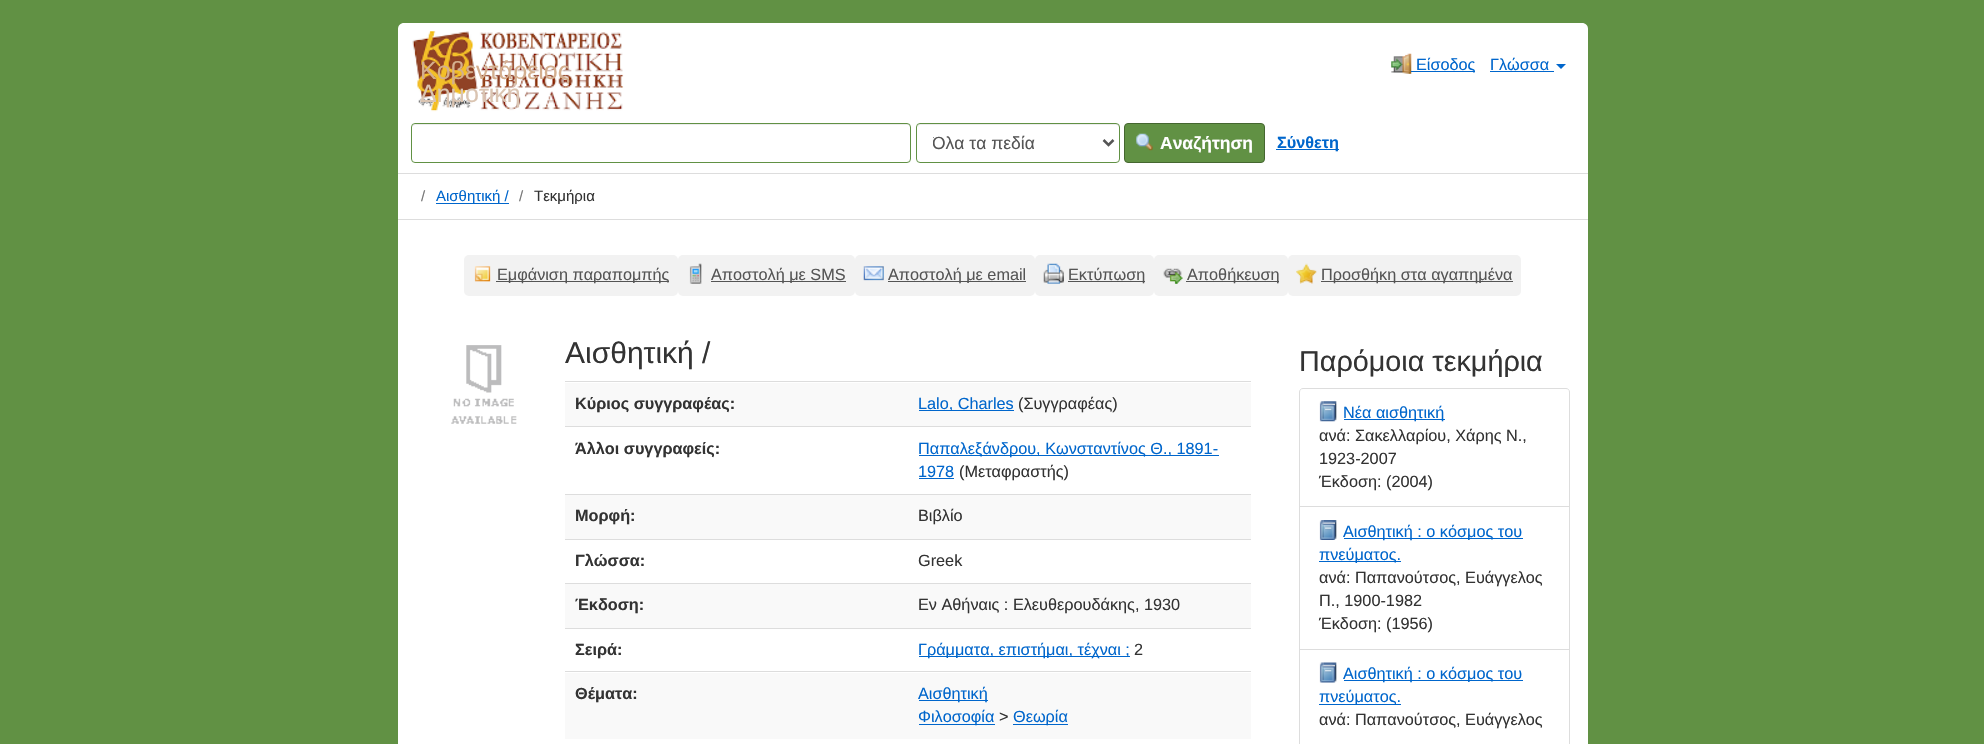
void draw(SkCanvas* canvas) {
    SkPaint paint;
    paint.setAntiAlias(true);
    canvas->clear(0xFF619144);
    paint.setColor(0xFFFFFFFF);
    canvas->drawPath(SkPathBuilder().moveTo(404, 23).lineTo(1582, 23).cubicTo(1585.5f, 23, 1588, 25.5f, 1588, 29).lineTo(1588, 113).lineTo(398, 113).lineTo(398, 29).cubicTo(398, 25.5f, 400.5f, 23, 404, 23).close().detach(), paint);
    canvas->drawImageRect(SkImages::DeferredFromEncodedData(SkData::MakeFromFileName("img1.png")), SkRect::MakeXYWH(412, 31, 212, 81), SkSamplingOptions());
    SkFont font1(fontMgr->matchFamilyStyle("Liberation Sans", SkFontStyle::Normal()), 25);
    font1.setSubpixel(true);
    paint.setColor(0xFFD4AF8F);
    canvas->drawString("Κοβεντάρειος", 420, 79, font1, paint);
    paint.setColor(0xFFDAC4B1);
    canvas->drawString("Δημοτική", 420, 102, font1, paint);
    canvas->drawImageRect(SkImages::DeferredFromEncodedData(SkData::MakeFromFileName("img2.png")), SkRect::MakeXYWH(1391, 53, 21, 21), SkSamplingOptions());
    paint.setColor(0xFF0066CC);
    canvas->drawRect(SkRect::MakeXYWH(1411, 71, 64, 1), paint);
    SkFont font2(fontMgr->matchFamilyStyle("Liberation Sans", SkFontStyle::Normal()), 16.25f);
    font2.setSubpixel(true);
    canvas->drawString("Είσοδος", 1416, 70, font2, paint);
    canvas->drawString("Γλώσσα", 1490, 70, font2, paint);
    canvas->drawRect(SkRect::MakeXYWH(1490, 71, 64, 1), paint);
    canvas->drawPath(SkPathBuilder().moveTo(1556, 64).lineTo(1566, 64).lineTo(1561, 69).close().detach(), paint);
    paint.setColor(0xFFFFFFFF);
    canvas->drawRect(SkRect::MakeXYWH(398, 113, 1190, 60), paint);
    paint.setColor(0xFFECECEC);
    canvas->drawPath(SkPathBuilder().moveTo(415, 125).lineTo(908, 125).cubicTo(909, 125, 910, 126, 910, 128).lineTo(910, 126).cubicTo(910, 125, 909, 124, 908, 124).lineTo(416, 124).cubicTo(414, 124, 413, 125, 413, 126).close().detach(), paint);
    paint.setStyle(SkPaint::kStroke_Style);
    paint.setStrokeWidth(1);
    paint.setColor(0xFF619144);
    canvas->drawRoundRect(SkRect::MakeXYWH(411.5f, 123.5f, 499, 39), 3.5f, 3.5f, paint);
    paint.setStyle(SkPaint::kFill_Style);
    paint.setColor(0xFFECECEC);
    canvas->drawPath(SkPathBuilder().moveTo(920, 125).lineTo(1116, 125).cubicTo(1118, 125, 1119, 126, 1119, 128).lineTo(1119, 126).cubicTo(1119, 125, 1118, 124, 1116, 124).lineTo(920, 124).cubicTo(919, 124, 918, 125, 918, 126).lineTo(918, 128).cubicTo(918, 126, 919, 125, 920, 125).close().detach(), paint);
    paint.setStyle(SkPaint::kStroke_Style);
    paint.setColor(0xFF619144);
    canvas->drawRoundRect(SkRect::MakeXYWH(916.5f, 123.5f, 203, 39), 3.5f, 3.5f, paint);
    paint.setStrokeWidth(2.5f);
    paint.setColor(0xFF555555);
    canvas->drawPath(SkPathBuilder().moveTo(1103.5f, 140).lineTo(1108.5f, 145).lineTo(1113.5f, 140).detach(), paint);
    canvas->save();
    canvas->clipRect(SkRect::MakeXYWH(933, 131, 156, 23));
    SkFont font3(fontMgr->matchFamilyStyle("Liberation Sans", SkFontStyle::Normal()), 17.5f);
    font3.setSubpixel(true);
    paint.setStyle(SkPaint::kFill_Style);
    canvas->drawString("Όλα τα πεδία", 932, 149, font3, paint);
    canvas->restore();
    paint.setColor(0xFF619144);
    canvas->drawRoundRect(SkRect::MakeXYWH(1124.5f, 123.5f, 140, 39), 3.5f, 3.5f, paint);
    paint.setStyle(SkPaint::kStroke_Style);
    paint.setStrokeWidth(1);
    paint.setColor(0xFF456730);
    canvas->drawRoundRect(SkRect::MakeXYWH(1124.5f, 123.5f, 140, 39), 3.5f, 3.5f, paint);
    canvas->drawImageRect(SkImages::DeferredFromEncodedData(SkData::MakeFromFileName("img3.png")), SkRect::MakeXYWH(1136, 133, 17, 18), SkSamplingOptions());
    SkFont font4(fontMgr->matchFamilyStyle("Liberation Sans", SkFontStyle::Bold()), 17.5f);
    font4.setSubpixel(true);
    paint.setStyle(SkPaint::kFill_Style);
    paint.setColor(0xFFFFFFFF);
    canvas->drawString("Αναζήτηση", 1160, 149, font4, paint);
    paint.setColor(0xFF0066CC);
    canvas->drawRect(SkRect::MakeXYWH(1276, 149, 63, 1), paint);
    SkFont font5(fontMgr->matchFamilyStyle("Liberation Sans", SkFontStyle::Bold()), 16.25f);
    font5.setSubpixel(true);
    canvas->drawString("Σύνθετη", 1277, 148, font5, paint);
    paint.setColor(0xFFFFFFFF);
    canvas->drawRect(SkRect::MakeXYWH(398, 174, 1190, 45), paint);
    paint.setColor(0xFFDDDDDD);
    canvas->drawRect(SkRect::MakeXYWH(398, 173, 1190, 1), paint);
    canvas->drawRect(SkRect::MakeXYWH(398, 219, 1190, 1), paint);
    SkFont font6(fontMgr->matchFamilyStyle("Liberation Sans", SkFontStyle::Normal()), 15);
    font6.setSubpixel(true);
    paint.setColor(0xFF777777);
    canvas->drawString("/", 421, 201, font6, paint);
    paint.setColor(0xFF0066CC);
    canvas->drawRect(SkRect::MakeXYWH(436, 203, 73, 1), paint);
    canvas->drawString("Αισθητική /", 436, 201, font6, paint);
    paint.setColor(0xFF777777);
    canvas->drawString("/", 519, 201, font6, paint);
    paint.setColor(0xFF333333);
    canvas->drawString("Τεκμήρια", 534, 201, font6, paint);
    paint.setColor(0xFFFFFFFF);
    canvas->drawRect(SkRect::MakeXYWH(398, 220, 1190, 524), paint);
    paint.setColor(0xFFF2F2F2);
    canvas->drawRoundRect(SkRect::MakeXYWH(464, 255, 214, 41), 5, 5, paint);
    canvas->drawImageRect(SkImages::DeferredFromEncodedData(SkData::MakeFromFileName("img4.png")), SkRect::MakeXYWH(474, 266, 17, 16), SkSamplingOptions());
    paint.setColor(0xFF555555);
    canvas->drawRect(SkRect::MakeXYWH(496, 281, 173, 1), paint);
    canvas->drawString("Εμφάνιση παραπομπής", 497, 280, font2, paint);
    paint.setColor(0xFFF2F2F2);
    canvas->drawRoundRect(SkRect::MakeXYWH(678, 255, 177, 41), 5, 5, paint);
    canvas->drawImageRect(SkImages::DeferredFromEncodedData(SkData::MakeFromFileName("img5.png")), SkRect::MakeXYWH(689, 263, 13, 21), SkSamplingOptions());
    paint.setColor(0xFF555555);
    canvas->drawRect(SkRect::MakeXYWH(711, 281, 135, 1), paint);
    canvas->drawString("Αποστολή με SMS", 711, 280, font2, paint);
    paint.setColor(0xFFF2F2F2);
    canvas->drawRoundRect(SkRect::MakeXYWH(855, 255, 180, 41), 5, 5, paint);
    canvas->drawImageRect(SkImages::DeferredFromEncodedData(SkData::MakeFromFileName("img6.png")), SkRect::MakeXYWH(863, 266, 21, 15), SkSamplingOptions());
    paint.setColor(0xFF555555);
    canvas->drawRect(SkRect::MakeXYWH(888, 281, 138, 1), paint);
    canvas->drawString("Αποστολή με email", 888, 280, font2, paint);
    paint.setColor(0xFFF2F2F2);
    canvas->drawRoundRect(SkRect::MakeXYWH(1035, 255, 119, 41), 5, 5, paint);
    canvas->drawImageRect(SkImages::DeferredFromEncodedData(SkData::MakeFromFileName("img7.png")), SkRect::MakeXYWH(1043, 263, 21, 21), SkSamplingOptions());
    paint.setColor(0xFF555555);
    canvas->drawRect(SkRect::MakeXYWH(1068, 281, 77, 1), paint);
    canvas->drawString("Εκτύπωση", 1068, 280, font2, paint);
    paint.setColor(0xFFF2F2F2);
    canvas->drawRoundRect(SkRect::MakeXYWH(1154, 255, 134, 41), 5, 5, paint);
    canvas->drawImageRect(SkImages::DeferredFromEncodedData(SkData::MakeFromFileName("img8.png")), SkRect::MakeXYWH(1163, 268, 20, 16), SkSamplingOptions());
    paint.setColor(0xFF555555);
    canvas->drawRect(SkRect::MakeXYWH(1186, 281, 93, 1), paint);
    canvas->drawString("Αποθήκευση", 1187, 280, font2, paint);
    paint.setColor(0xFFF2F2F2);
    canvas->drawRoundRect(SkRect::MakeXYWH(1288, 255, 233, 41), 5, 5, paint);
    canvas->drawImageRect(SkImages::DeferredFromEncodedData(SkData::MakeFromFileName("img9.png")), SkRect::MakeXYWH(1296, 263, 21, 21), SkSamplingOptions());
    paint.setColor(0xFF555555);
    canvas->drawRect(SkRect::MakeXYWH(1321, 281, 192, 1), paint);
    canvas->drawString("Προσθήκη στα αγαπημένα", 1321, 280, font2, paint);
    canvas->drawImageRect(SkImages::DeferredFromEncodedData(SkData::MakeFromFileName("img10.png")), SkRect::MakeXYWH(451, 345, 66, 79), SkSamplingOptions());
    SkFont font7(fontMgr->matchFamilyStyle("Liberation Sans", SkFontStyle::Normal()), 30);
    font7.setSubpixel(true);
    paint.setColor(0xFF333333);
    canvas->drawString("Αισθητική /", 565, 363, font7, paint);
    paint.setColor(0xFFF9F9F9);
    canvas->drawRect(SkRect::MakeXYWH(565, 383, 686, 43), paint);
    paint.setColor(0xFF333333);
    canvas->drawString("Κύριος συγγραφέας:", 575, 409, font5, paint);
    paint.setColor(0xFFDDDDDD);
    canvas->drawRect(SkRect::MakeXYWH(565, 381, 686, 1), paint);
    paint.setColor(0xFF0066CC);
    canvas->drawRect(SkRect::MakeXYWH(919, 410, 95, 1), paint);
    canvas->drawString("Lalo, Charles", 918, 409, font2, paint);
    paint.setColor(0xFF333333);
    canvas->drawString("(Συγγραφέας)", 1018, 409, font2, paint);
    canvas->drawString("Άλλοι συγγραφείς:", 575, 454, font5, paint);
    paint.setColor(0xFFDDDDDD);
    canvas->drawRect(SkRect::MakeXYWH(565, 426, 686, 1), paint);
    paint.setColor(0xFF0066CC);
    canvas->drawRect(SkRect::MakeXYWH(919, 455, 300, 1), paint);
    canvas->drawString("Παπαλεξάνδρου, Κωνσταντίνος Θ., 1891-", 918, 454, font2, paint);
    canvas->drawString("1978", 918, 477, font2, paint);
    canvas->drawRect(SkRect::MakeXYWH(919, 478, 35, 1), paint);
    paint.setColor(0xFF333333);
    canvas->drawString("(Μεταφραστής)", 959, 477, font2, paint);
    paint.setColor(0xFFF9F9F9);
    canvas->drawRect(SkRect::MakeXYWH(565, 495, 686, 44), paint);
    paint.setColor(0xFF333333);
    canvas->drawString("Μορφή:", 575, 521, font5, paint);
    paint.setColor(0xFFDDDDDD);
    canvas->drawRect(SkRect::MakeXYWH(565, 494, 686, 1), paint);
    paint.setColor(0xFF333333);
    canvas->drawString("Βιβλίο", 918, 521, font2, paint);
    canvas->drawString("Γλώσσα:", 575, 566, font5, paint);
    paint.setColor(0xFFDDDDDD);
    canvas->drawRect(SkRect::MakeXYWH(565, 539, 686, 1), paint);
    paint.setColor(0xFF333333);
    canvas->drawString("Greek", 918, 566, font2, paint);
    paint.setColor(0xFFF9F9F9);
    canvas->drawRect(SkRect::MakeXYWH(565, 584, 686, 44), paint);
    paint.setColor(0xFF333333);
    canvas->drawString("Έκδοση:", 575, 610, font5, paint);
    paint.setColor(0xFFDDDDDD);
    canvas->drawRect(SkRect::MakeXYWH(565, 583, 686, 1), paint);
    paint.setColor(0xFF333333);
    canvas->drawString("Εν Αθήναις : Ελευθερουδάκης, 1930", 918, 610, font2, paint);
    canvas->drawString("Σειρά:", 575, 655, font5, paint);
    paint.setColor(0xFFDDDDDD);
    canvas->drawRect(SkRect::MakeXYWH(565, 628, 686, 1), paint);
    paint.setColor(0xFF0066CC);
    canvas->drawRect(SkRect::MakeXYWH(919, 656, 211, 1), paint);
    canvas->drawString("Γράμματα, επιστήμαι, τέχναι ;", 918, 655, font2, paint);
    paint.setColor(0xFF333333);
    canvas->drawString("2", 1134, 655, font2, paint);
    paint.setColor(0xFFF9F9F9);
    canvas->drawRect(SkRect::MakeXYWH(565, 673, 686, 66), paint);
    paint.setColor(0xFF333333);
    canvas->drawString("Θέματα:", 575, 699, font5, paint);
    paint.setColor(0xFFDDDDDD);
    canvas->drawRect(SkRect::MakeXYWH(565, 671, 686, 1), paint);
    paint.setColor(0xFF0066CC);
    canvas->drawRect(SkRect::MakeXYWH(919, 700, 69, 1), paint);
    canvas->drawString("Αισθητική", 918, 699, font2, paint);
    canvas->drawRect(SkRect::MakeXYWH(919, 724, 76, 1), paint);
    canvas->drawString("Φιλοσοφία", 918, 722, font2, paint);
    paint.setColor(0xFF333333);
    canvas->drawString(">", 999, 722, font2, paint);
    paint.setColor(0xFF0066CC);
    canvas->drawRect(SkRect::MakeXYWH(1013, 724, 55, 1), paint);
    canvas->drawString("Θεωρία", 1013, 722, font2, paint);
    SkFont font8(fontMgr->matchFamilyStyle("Liberation Sans", SkFontStyle::Normal()), 28.75f);
    font8.setSubpixel(true);
    paint.setColor(0xFF333333);
    canvas->drawString("Παρόμοια τεκμήρια", 1299, 371, font8, paint);
    paint.setStyle(SkPaint::kStroke_Style);
    paint.setColor(0xFFDDDDDD);
    canvas->drawPath(SkPathBuilder().moveTo(1303, 388.5f).lineTo(1566, 388.5f).cubicTo(1568, 388.5f, 1569.5f, 390, 1569.5f, 392).lineTo(1569.5f, 507.5f).lineTo(1299.5f, 507.5f).lineTo(1299.5f, 392).cubicTo(1299.5f, 390, 1301, 388.5f, 1303, 388.5f).close().detach(), paint);
    canvas->drawImageRect(SkImages::DeferredFromEncodedData(SkData::MakeFromFileName("img11.png")), SkRect::MakeXYWH(1319, 401, 18, 21), SkSamplingOptions());
    paint.setStyle(SkPaint::kFill_Style);
    paint.setColor(0xFF0066CC);
    canvas->drawRect(SkRect::MakeXYWH(1344, 419, 101, 1), paint);
    canvas->drawString("Νέα αισθητική", 1343, 418, font2, paint);
    paint.setColor(0xFF333333);
    canvas->drawString("ανά: Σακελλαρίου, Χάρης Ν.,", 1319, 441, font2, paint);
    canvas->drawString("1923-2007", 1319, 464, font2, paint);
    canvas->drawString("Έκδοση: (2004)", 1319, 487, font2, paint);
    paint.setColor(0xFFFFFFFF);
    canvas->drawRect(SkRect::MakeXYWH(1300, 507, 269, 1), paint);
    paint.setStyle(SkPaint::kStroke_Style);
    paint.setColor(0xFFDDDDDD);
    canvas->drawRect(SkRect::MakeXYWH(1299.5f, 506.5f, 270, 143), paint);
    canvas->drawImageRect(SkImages::DeferredFromEncodedData(SkData::MakeFromFileName("img12.png")), SkRect::MakeXYWH(1319, 520, 18, 20), SkSamplingOptions());
    paint.setStyle(SkPaint::kFill_Style);
    paint.setColor(0xFF0066CC);
    canvas->drawRect(SkRect::MakeXYWH(1344, 538, 179, 1), paint);
    canvas->drawString("Αισθητική : ο κόσμος του", 1343, 537, font2, paint);
    canvas->drawRect(SkRect::MakeXYWH(1319, 561, 82, 1), paint);
    canvas->drawString("πνεύματος.", 1319, 560, font2, paint);
    paint.setColor(0xFF333333);
    canvas->drawString("ανά: Παπανούτσος, Ευάγγελος", 1319, 583, font2, paint);
    canvas->drawString("Π., 1900-1982", 1319, 606, font2, paint);
    canvas->drawString("Έκδοση: (1956)", 1319, 629, font2, paint);
    paint.setStyle(SkPaint::kStroke_Style);
    paint.setColor(0xFFDDDDDD);
    canvas->drawRect(SkRect::MakeXYWH(1299.5f, 649.5f, 270, 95), paint);
    canvas->drawImageRect(SkImages::DeferredFromEncodedData(SkData::MakeFromFileName("img13.png")), SkRect::MakeXYWH(1319, 662, 18, 21), SkSamplingOptions());
    paint.setStyle(SkPaint::kFill_Style);
    paint.setColor(0xFF0066CC);
    canvas->drawRect(SkRect::MakeXYWH(1344, 680, 179, 1), paint);
    canvas->drawString("Αισθητική : ο κόσμος του", 1343, 679, font2, paint);
    canvas->drawRect(SkRect::MakeXYWH(1319, 704, 82, 1), paint);
    canvas->drawString("πνεύματος.", 1319, 702, font2, paint);
    paint.setColor(0xFF333333);
    canvas->drawString("ανά: Παπανούτσος, Ευάγγελος", 1319, 725, font2, paint);
}
